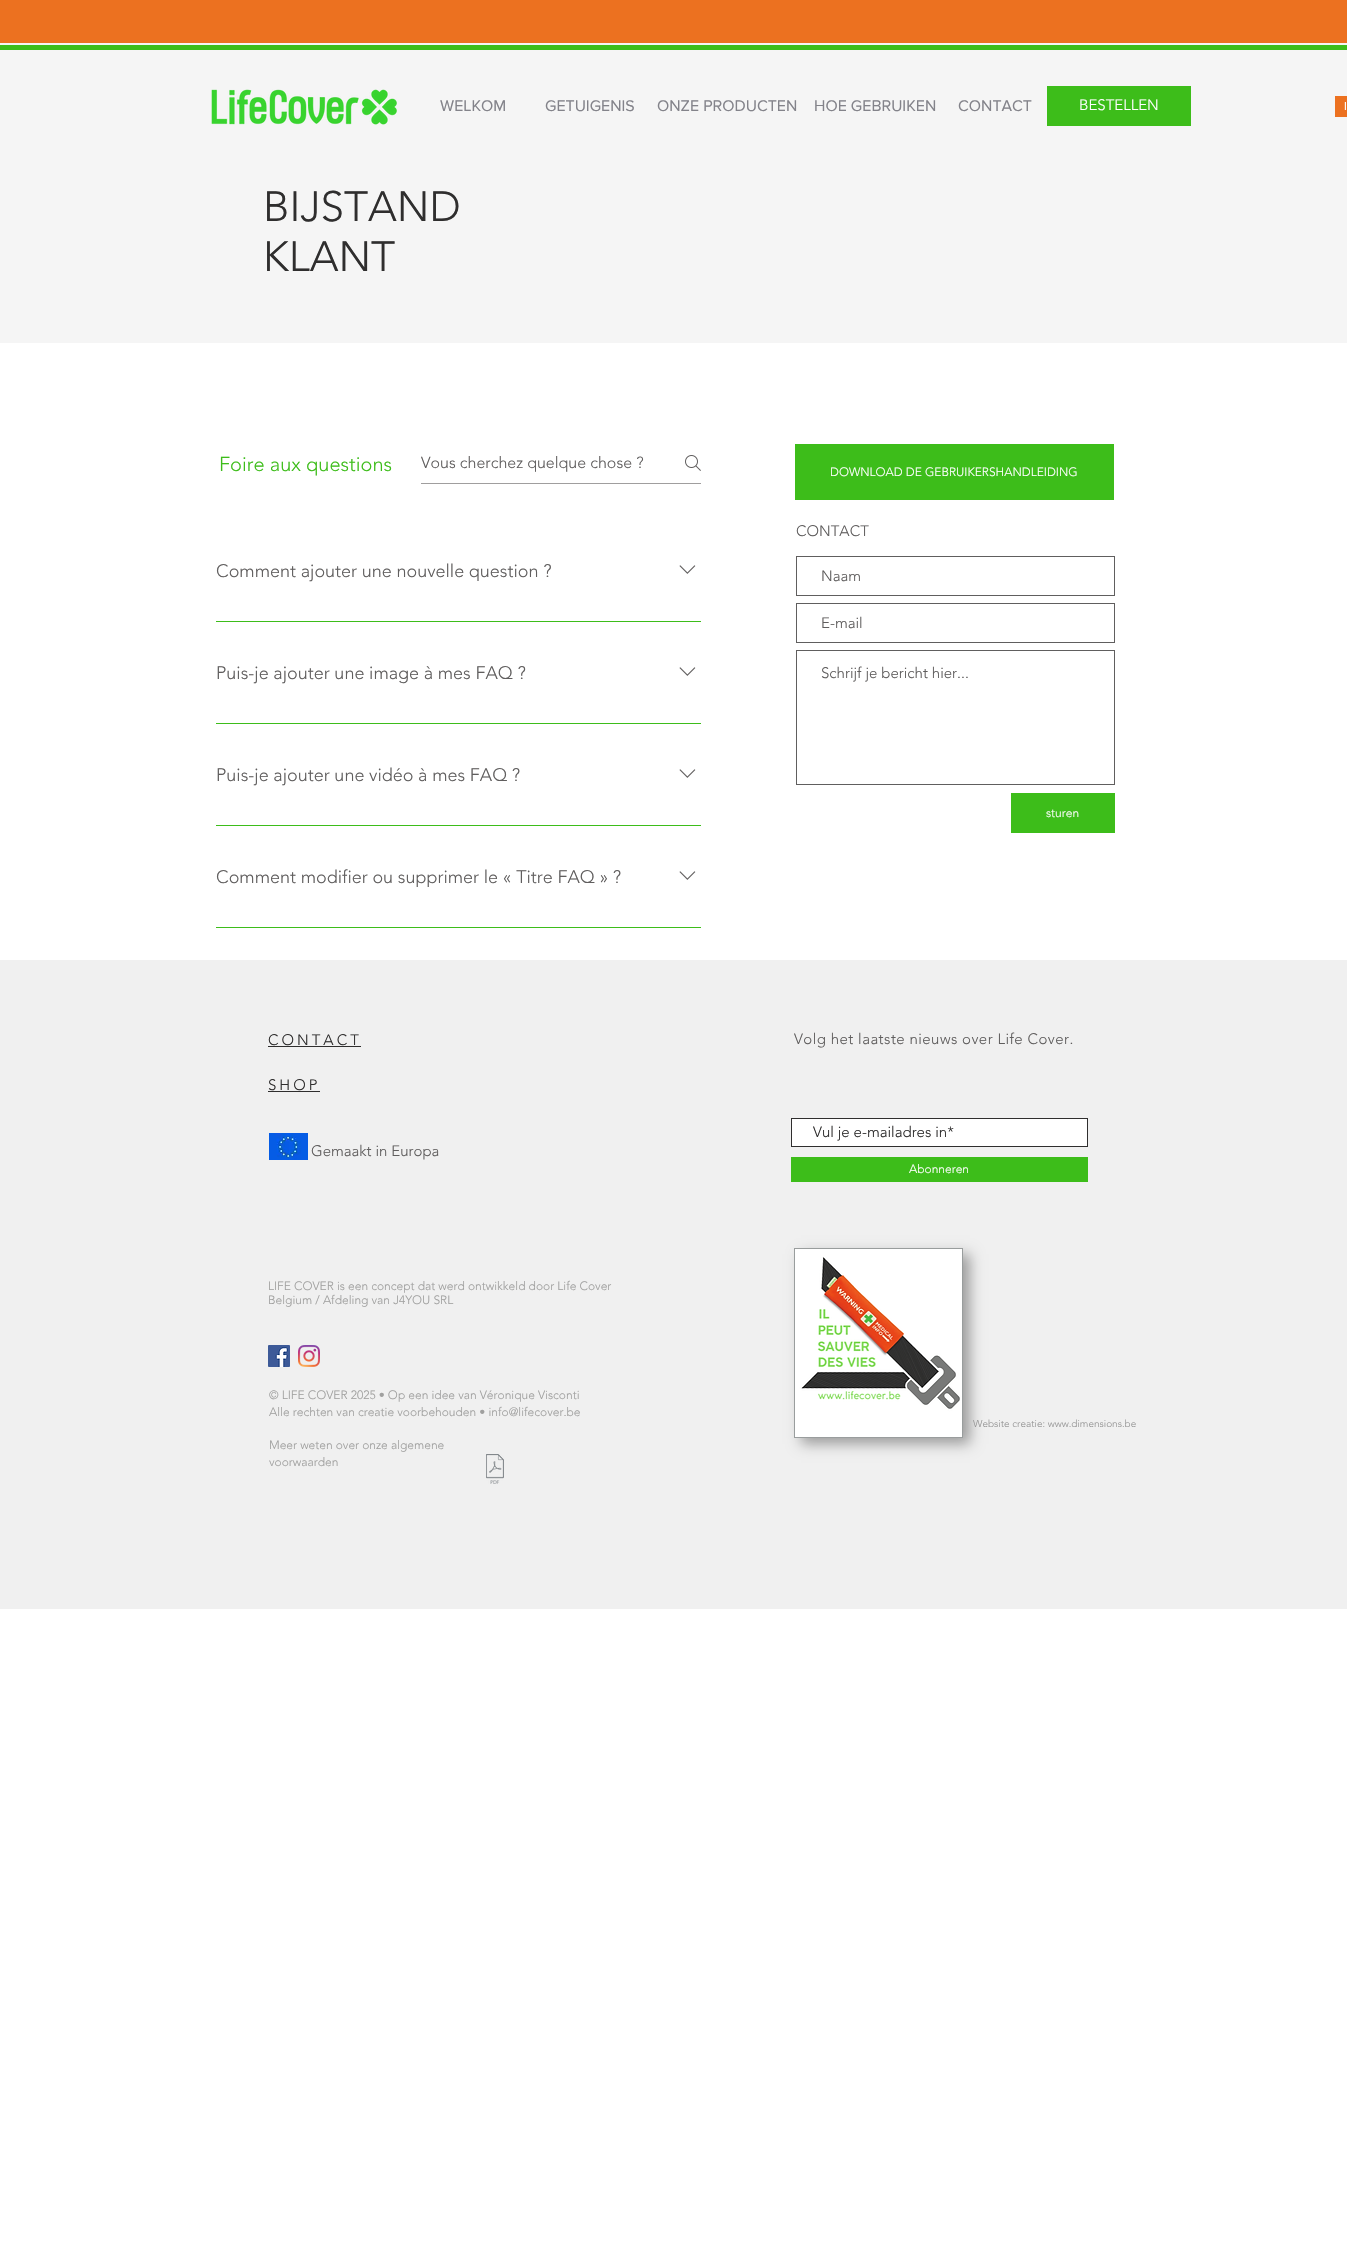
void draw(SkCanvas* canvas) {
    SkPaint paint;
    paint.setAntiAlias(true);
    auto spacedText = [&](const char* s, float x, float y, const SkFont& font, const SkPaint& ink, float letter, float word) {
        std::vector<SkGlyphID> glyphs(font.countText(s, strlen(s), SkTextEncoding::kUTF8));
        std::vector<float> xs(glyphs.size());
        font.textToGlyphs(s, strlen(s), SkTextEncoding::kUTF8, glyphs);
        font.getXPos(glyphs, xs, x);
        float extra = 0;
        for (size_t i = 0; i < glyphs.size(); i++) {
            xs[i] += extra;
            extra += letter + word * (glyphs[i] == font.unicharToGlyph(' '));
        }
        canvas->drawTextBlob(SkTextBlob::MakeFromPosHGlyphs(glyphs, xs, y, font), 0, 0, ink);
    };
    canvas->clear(0xFFFFFFFF);
    paint.setColor(0xFFEC7120);
    canvas->drawRect(SkRect::MakeXYWH(0, 0, 1347, 43), paint);
    paint.setColor(0xFFF5F5F5);
    canvas->drawRect(SkRect::MakeXYWH(0, 43, 1347, 300), paint);
    paint.setColor(0xFF3DBD1A);
    canvas->drawRect(SkRect::MakeXYWH(0, 45, 1347, 5), paint);
    canvas->drawImageRect(SkImages::DeferredFromEncodedData(SkData::MakeFromFileName("img1.png")), SkRect::MakeXYWH(211, 89, 186, 36), SkSamplingOptions());
    SkFont font1(fontMgr->matchFamilyStyle("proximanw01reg", SkFontStyle::Normal()), 16);
    font1.setSubpixel(true);
    paint.setColor(0xFF83838A);
    canvas->drawString("WELKOM", 440, 111, font1, paint);
    canvas->drawString("GETUIGENIS", 545, 111, font1, paint);
    canvas->drawString("ONZE PRODUCTEN", 657, 111, font1, paint);
    canvas->drawString("HOE GEBRUIKEN", 814, 111, font1, paint);
    canvas->drawString("CONTACT", 958, 111, font1, paint);
    paint.setColor(0xFF3DBD1A);
    canvas->drawRect(SkRect::MakeXYWH(1047, 86, 144, 40), paint);
    SkFont font2(fontMgr->matchFamilyStyle("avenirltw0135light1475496", SkFontStyle(300, SkFontStyle::kNormal_Width, SkFontStyle::kUpright_Slant)), 15);
    font2.setSubpixel(true);
    paint.setColor(0xFFFFFFFF);
    canvas->drawString("BESTELLEN", 1079, 110, font2, paint);
    paint.setColor(0xFFEC7120);
    canvas->drawRect(SkRect::MakeXYWH(1335, 96, 12, 21), paint);
    SkFont font3(fontMgr->matchFamilyStyle("proximanw01reg", SkFontStyle::Normal()), 12);
    font3.setSubpixel(true);
    paint.setColor(0xFFFFFFFF);
    canvas->drawString("I", 1344, 110, font3, paint);
    SkFont font4(fontMgr->matchFamilyStyle("avenirltw0135light1475496", SkFontStyle(300, SkFontStyle::kNormal_Width, SkFontStyle::kUpright_Slant)), 42);
    font4.setSubpixel(true);
    paint.setColor(0xFF2F2E2E);
    canvas->drawString("BIJSTAND", 263, 221, font4, paint);
    canvas->drawString("KLANT", 263, 271, font4, paint);
    SkFont font5(fontMgr->matchFamilyStyle("avenirltw0135light1475496", SkFontStyle(300, SkFontStyle::kNormal_Width, SkFontStyle::kUpright_Slant)), 20);
    font5.setSubpixel(true);
    paint.setColor(0xFF3DBD1A);
    canvas->drawString("Foire aux questions", 219, 471, font5, paint);
    paint.setColor(0xFFA09E9E);
    canvas->drawRect(SkRect::MakeXYWH(421, 483, 280, 1), paint);
    SkFont font6(fontMgr->matchFamilyStyle("avenirltw0135light1475496", SkFontStyle(300, SkFontStyle::kNormal_Width, SkFontStyle::kUpright_Slant)), 16);
    font6.setSubpixel(true);
    paint.setColor(0xFF605E5E);
    canvas->drawString("Vous cherchez quelque chose ?", 421, 468, font6, paint);
    canvas->drawImageRect(SkImages::DeferredFromEncodedData(SkData::MakeFromFileName("img2.png")), SkRect::MakeXYWH(685, 455, 16, 16), SkSamplingOptions());
    SkFont font7(fontMgr->matchFamilyStyle("avenirltw0135light1475496", SkFontStyle(300, SkFontStyle::kNormal_Width, SkFontStyle::kUpright_Slant)), 18);
    font7.setSubpixel(true);
    canvas->drawString("Comment ajouter une nouvelle question ?", 216, 577, font7, paint);
    canvas->drawImageRect(SkImages::DeferredFromEncodedData(SkData::MakeFromFileName("img3.png")), SkRect::MakeXYWH(679, 565, 17, 9), SkSamplingOptions());
    paint.setColor(0xFF3DBD1A);
    canvas->drawRect(SkRect::MakeXYWH(216, 621, 485, 1), paint);
    paint.setColor(0xFF605E5E);
    canvas->drawString("Puis-je ajouter une image à mes FAQ ?", 216, 679, font7, paint);
    canvas->drawImageRect(SkImages::DeferredFromEncodedData(SkData::MakeFromFileName("img3.png")), SkRect::MakeXYWH(679, 667, 17, 9), SkSamplingOptions());
    paint.setColor(0xFF3DBD1A);
    canvas->drawRect(SkRect::MakeXYWH(216, 723, 485, 1), paint);
    paint.setColor(0xFF605E5E);
    canvas->drawString("Puis-je ajouter une vidéo à mes FAQ ?", 216, 781, font7, paint);
    canvas->drawImageRect(SkImages::DeferredFromEncodedData(SkData::MakeFromFileName("img3.png")), SkRect::MakeXYWH(679, 769, 17, 9), SkSamplingOptions());
    paint.setColor(0xFF3DBD1A);
    canvas->drawRect(SkRect::MakeXYWH(216, 825, 485, 1), paint);
    paint.setColor(0xFF605E5E);
    canvas->drawString("Comment modifier ou supprimer le « Titre FAQ » ?", 216, 883, font7, paint);
    canvas->drawImageRect(SkImages::DeferredFromEncodedData(SkData::MakeFromFileName("img3.png")), SkRect::MakeXYWH(679, 871, 17, 9), SkSamplingOptions());
    paint.setColor(0xFF3DBD1A);
    canvas->drawRect(SkRect::MakeXYWH(216, 927, 485, 1), paint);
    canvas->drawRect(SkRect::MakeXYWH(795, 444, 319, 56), paint);
    SkFont font8(fontMgr->matchFamilyStyle("avenirltw0135light1475496", SkFontStyle(300, SkFontStyle::kNormal_Width, SkFontStyle::kUpright_Slant)), 12);
    font8.setSubpixel(true);
    paint.setColor(0xFFFFFFFF);
    canvas->drawString("DOWNLOAD DE GEBRUIKERSHANDLEIDING", 830, 476, font8, paint);
    paint.setColor(0xFF605E5E);
    canvas->drawString("CONTACT", 796, 536, font2, paint);
    paint.setStyle(SkPaint::kStroke_Style);
    paint.setStrokeWidth(1);
    canvas->drawRect(SkRect::MakeXYWH(796.5f, 556.5f, 318, 39), paint);
    paint.setStyle(SkPaint::kFill_Style);
    canvas->drawString("Naam", 821, 581, font2, paint);
    paint.setStyle(SkPaint::kStroke_Style);
    canvas->drawRect(SkRect::MakeXYWH(796.5f, 603.5f, 318, 39), paint);
    paint.setStyle(SkPaint::kFill_Style);
    canvas->drawString("E-mail", 821, 628, font2, paint);
    paint.setStyle(SkPaint::kStroke_Style);
    canvas->drawRect(SkRect::MakeXYWH(796.5f, 650.5f, 318, 134), paint);
    paint.setStyle(SkPaint::kFill_Style);
    canvas->drawString("Schrijf je bericht hier...", 821, 678, font2, paint);
    paint.setColor(0xFF3DBD1A);
    canvas->drawRect(SkRect::MakeXYWH(1011, 793, 104, 40), paint);
    paint.setColor(0xFFFFFFFF);
    canvas->drawString("sturen", 1046, 817, font8, paint);
    paint.setColor(0xFFF0F0F0);
    canvas->drawRect(SkRect::MakeXYWH(0, 960, 1347, 649), paint);
    paint.setColor(0xFF2F2E2E);
    spacedText("CONTACT", 268, 1045, font2, paint, 3, 0);
    canvas->drawRect(SkRect::MakeXYWH(268, 1046, 93, 1), paint);
    paint.setColor(0xFF605E5E);
    spacedText("Volg het laatste nieuws over Life Cover.", 794, 1044, font2, paint, 0.45f, 0);
    paint.setColor(0xFFFFFFFF);
    canvas->drawRect(SkRect::MakeXYWH(791.5f, 1118.5f, 296, 28), paint);
    paint.setStyle(SkPaint::kStroke_Style);
    paint.setColor(0xFF2F2E2E);
    canvas->drawRect(SkRect::MakeXYWH(791.5f, 1118.5f, 296, 28), paint);
    paint.setStyle(SkPaint::kFill_Style);
    canvas->drawString("Vul je e-mailadres in*", 813, 1137, font2, paint);
    paint.setColor(0xFF3DBD1A);
    canvas->drawRect(SkRect::MakeXYWH(791, 1157, 297, 25), paint);
    paint.setColor(0xFFFFFFFF);
    canvas->drawString("Abonneren", 909, 1173, font8, paint);
    paint.setColor(0xFF2F2E2E);
    spacedText("SHOP", 268, 1090, font2, paint, 3, 0);
    canvas->drawRect(SkRect::MakeXYWH(268, 1091, 52, 1), paint);
    canvas->drawImageRect(SkImages::DeferredFromEncodedData(SkData::MakeFromFileName("img4.png")), SkRect::MakeXYWH(269, 1133, 39, 27), SkSamplingOptions());
    paint.setColor(0xFF605E5E);
    canvas->drawString("Gemaakt in Europa", 311, 1156, font2, paint);
    paint.setColor(0xFFA0A09F);
    canvas->drawString("LIFE COVER is een concept dat werd ontwikkeld door Life Cover", 268, 1290, font8, paint);
    canvas->drawString("Belgium / Afdeling van J4YOU SRL", 268, 1304, font8, paint);
    paint.setColor(0x59000000);
    paint.setMaskFilter(SkMaskFilter::MakeBlur(kNormal_SkBlurStyle, 6.5f));
    canvas->drawRect(SkRect::MakeXYWH(801, 1254, 169, 190), paint);
    paint.setMaskFilter(nullptr);
    paint.setColor(0xFF999D9D);
    canvas->drawRect(SkRect::MakeXYWH(794, 1248, 169, 190), paint);
    canvas->drawImageRect(SkImages::DeferredFromEncodedData(SkData::MakeFromFileName("img5.png")), SkRect::MakeXYWH(795, 1249, 167, 188), SkSamplingOptions());
    canvas->drawImageRect(SkImages::DeferredFromEncodedData(SkData::MakeFromFileName("img6.png")), SkRect::MakeXYWH(268, 1345, 22, 22), SkSamplingOptions());
    canvas->drawImageRect(SkImages::DeferredFromEncodedData(SkData::MakeFromFileName("img7.png")), SkRect::MakeXYWH(298, 1345, 22, 22), SkSamplingOptions());
    paint.setColor(0xFFA0A09F);
    canvas->drawString("© LIFE COVER 2025 • Op een idee van Véronique Visconti", 269, 1399, font8, paint);
    canvas->drawString("Alle rechten van creatie voorbehouden • info@lifecover.be", 269, 1416, font8, paint);
    canvas->drawString("Meer weten over onze algemene", 269, 1449, font8, paint);
    canvas->drawString("voorwaarden", 269, 1466, font8, paint);
    SkFont font9(fontMgr->matchFamilyStyle("avenirltw0135light1475496", SkFontStyle(300, SkFontStyle::kNormal_Width, SkFontStyle::kUpright_Slant)), 10);
    font9.setSubpixel(true);
    paint.setColor(0xFF959595);
    canvas->drawString("Website creatie: www.dimensions.be", 973, 1427, font9, paint);
    canvas->drawImageRect(SkImages::DeferredFromEncodedData(SkData::MakeFromFileName("img8.png")), SkRect::MakeXYWH(486, 1454, 18, 30), SkSamplingOptions());
}
